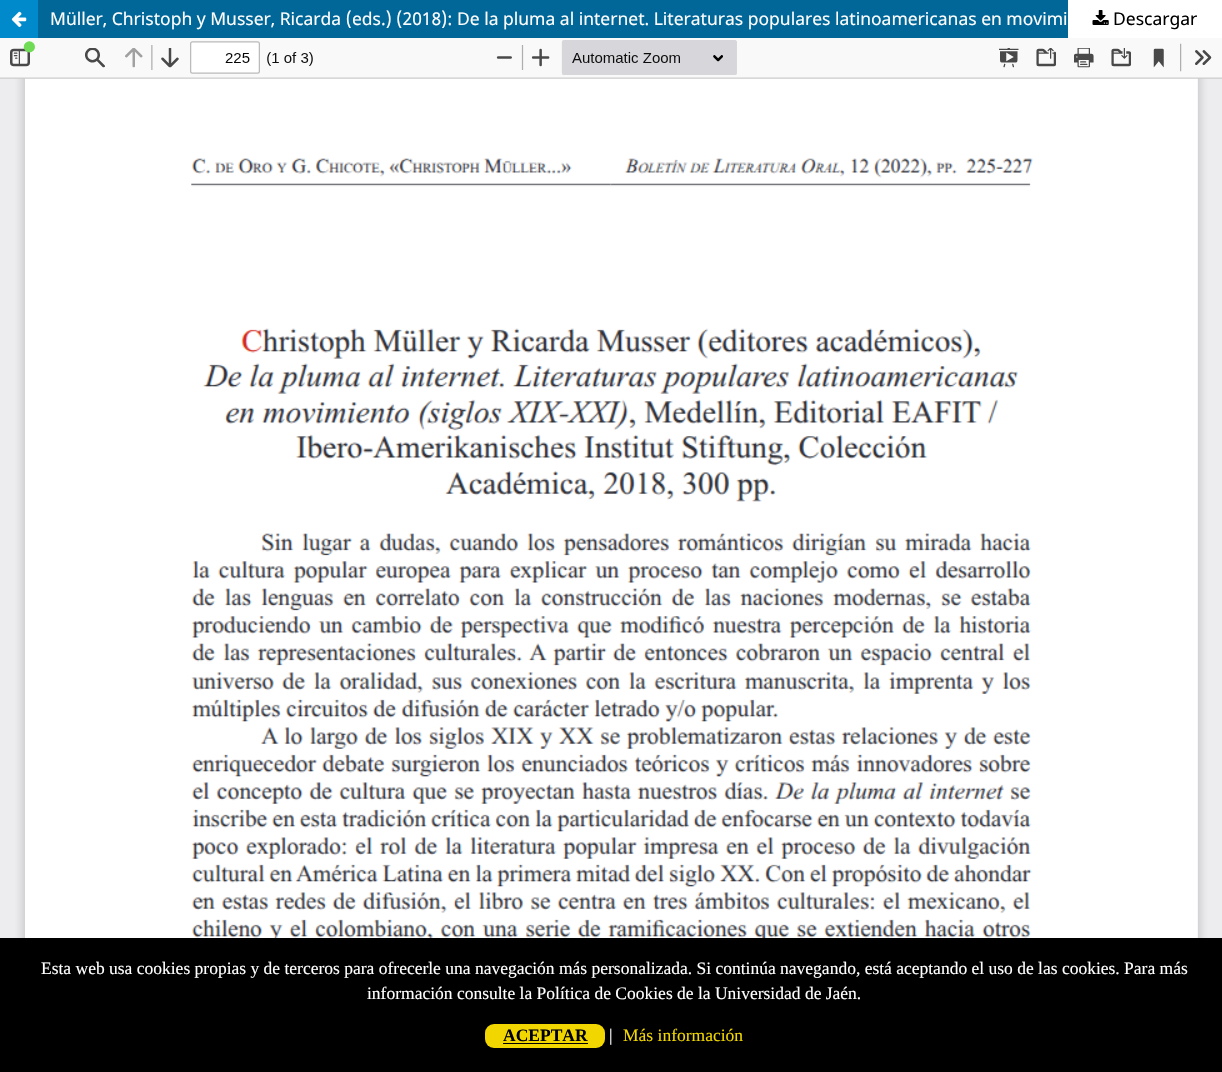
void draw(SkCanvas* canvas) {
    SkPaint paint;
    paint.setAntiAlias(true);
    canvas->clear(0xFFFFFFFF);
    paint.setColor(0xFF006798);
    canvas->drawRect(SkRect::MakeXYWH(38, 0, 1030, 38), paint);
    paint.setColor(0xFF008ACB);
    canvas->drawRect(SkRect::MakeXYWH(0, 0, 38, 38), paint);
    canvas->drawImageRect(SkImages::DeferredFromEncodedData(SkData::MakeFromFileName("img1.png")), SkRect::MakeXYWH(11, 11, 16, 16), SkSamplingOptions());
    SkFont font1(fontMgr->matchFamilyStyle("Noto Sans", SkFontStyle::Normal()), 17.5f);
    font1.setSubpixel(true);
    paint.setColor(0xFFFFFFFF);
    canvas->drawString("Müller, Christoph y Musser, Ricarda (eds.) (2018): De la pluma al internet. Literaturas populares latinoamericanas en movimi", 50, 25, font1, paint);
    canvas->drawImageRect(SkImages::DeferredFromEncodedData(SkData::MakeFromFileName("img2.png")), SkRect::MakeXYWH(1092, 10, 17, 15), SkSamplingOptions());
    paint.setColor(0xFF000000);
    canvas->drawString("Descargar", 1113, 25, font1, paint);
    canvas->drawImageRect(SkImages::DeferredFromEncodedData(SkData::MakeFromFileName("img3.png")), SkRect::MakeXYWH(0, 38, 1222, 900), SkSamplingOptions());
    canvas->drawRect(SkRect::MakeXYWH(0, 938, 1222, 134), paint);
    SkFont font2(fontMgr->matchFamilyStyle("Liberation Serif", SkFontStyle::Normal()), 17.5f);
    font2.setSubpixel(true);
    paint.setColor(0xFFFFFFFF);
    canvas->drawString("Esta web usa cookies propias y de terceros para ofrecerle una navegación más personalizada. Si continúa navegando, está aceptando el uso de las cookies. Para más", 41, 974, font2, paint);
    canvas->drawString("información consulte la Política de Cookies de la Universidad de Jaén.", 367, 999, font2, paint);
    paint.setColor(0xFFF1D600);
    canvas->drawRoundRect(SkRect::MakeXYWH(485, 1024, 120, 24), 9, 9, paint);
    SkFont font3(fontMgr->matchFamilyStyle("Liberation Serif", SkFontStyle::Bold()), 17.5f);
    font3.setSubpixel(true);
    paint.setColor(0xFF000000);
    canvas->drawString("ACEPTAR", 503, 1041, font3, paint);
    canvas->drawRect(SkRect::MakeXYWH(503, 1043, 85, 1), paint);
    paint.setColor(0xFFFFFFFF);
    canvas->drawString("|", 609, 1041, font2, paint);
    paint.setColor(0xFFF1D600);
    canvas->drawString("Más información", 623, 1041, font2, paint);
}
